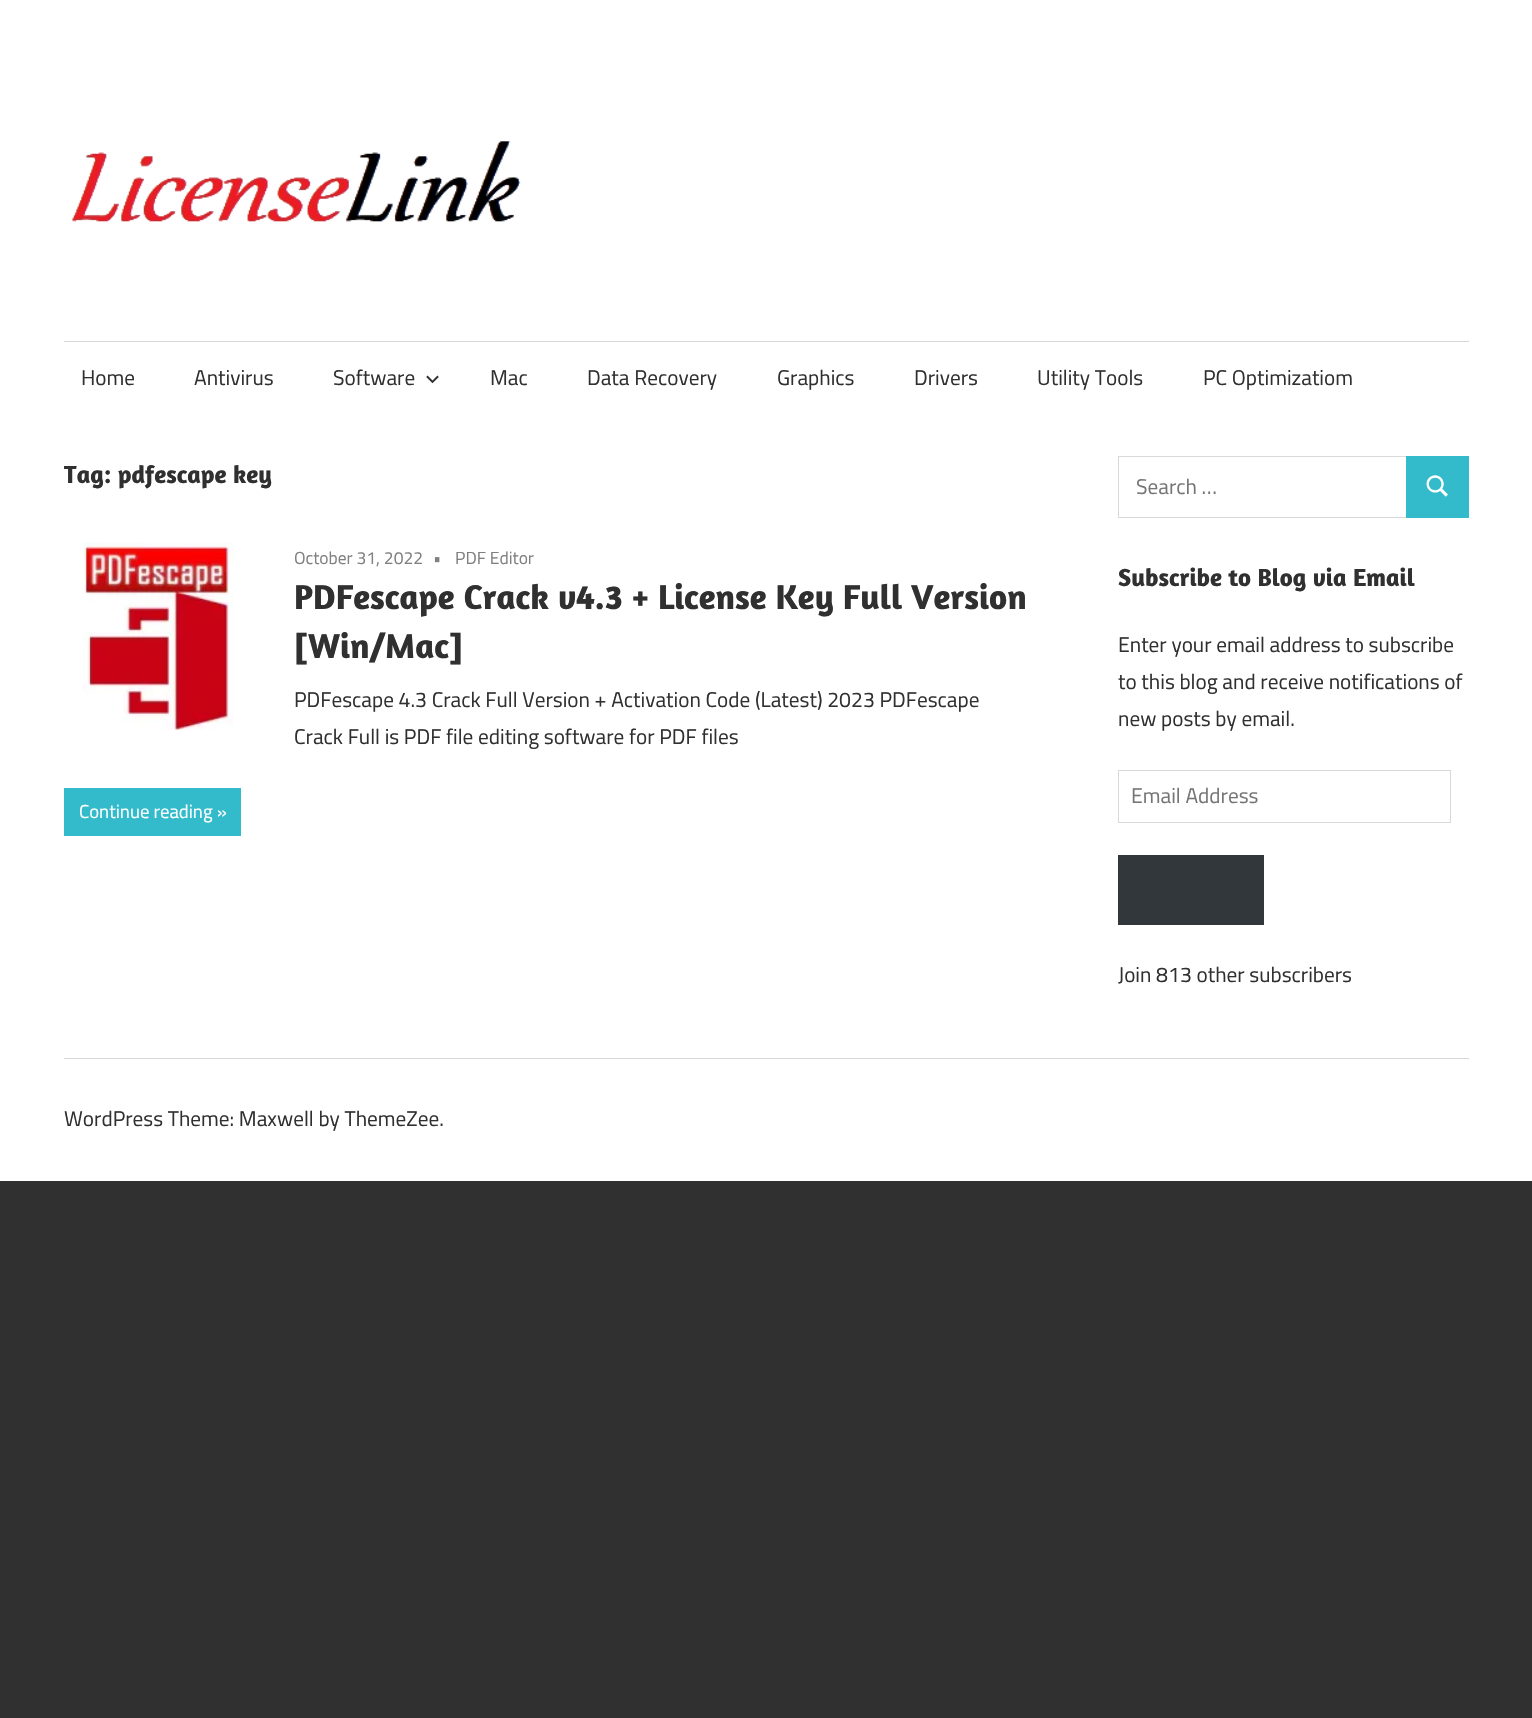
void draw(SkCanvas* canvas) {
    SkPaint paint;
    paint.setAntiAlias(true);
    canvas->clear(0xFF303030);
    paint.setColor(0xFFFFFFFF);
    canvas->drawRect(SkRect::MakeXYWH(0, 0, 1532, 1181), paint);
    canvas->drawImageRect(SkImages::DeferredFromEncodedData(SkData::MakeFromFileName("img1.png")), SkRect::MakeXYWH(72, 141, 449, 81), SkSamplingOptions());
    paint.setColor(0xFFD9D9D9);
    canvas->drawRect(SkRect::MakeXYWH(64, 341, 1405, 1), paint);
    SkFont font1(fontMgr->matchFamilyStyle("Titillium Web", SkFontStyle::Normal()), 21.25f);
    font1.setSubpixel(true);
    paint.setColor(0xFF303030);
    canvas->drawString("Home", 81, 385, font1, paint);
    canvas->drawString("Antivirus", 194, 385, font1, paint);
    canvas->drawString("Software", 333, 385, font1, paint);
    canvas->drawImageRect(SkImages::DeferredFromEncodedData(SkData::MakeFromFileName("img2.png")), SkRect::MakeXYWH(426, 375, 13, 9), SkSamplingOptions());
    canvas->drawString("Mac", 490, 385, font1, paint);
    canvas->drawString("Data Recovery", 587, 385, font1, paint);
    canvas->drawString("Graphics", 777, 385, font1, paint);
    canvas->drawString("Drivers", 914, 385, font1, paint);
    canvas->drawString("Utility Tools", 1037, 385, font1, paint);
    canvas->drawString("PC Optimizatiom", 1203, 385, font1, paint);
    SkFont font2(fontMgr->matchFamilyStyle("Amaranth", SkFontStyle::Bold()), 25);
    font2.setSubpixel(true);
    canvas->drawString("Tag: pdfescape key", 64, 483, font2, paint);
    canvas->drawImageRect(SkImages::DeferredFromEncodedData(SkData::MakeFromFileName("img3.png")), SkRect::MakeXYWH(82, 542, 152, 188), SkSamplingOptions());
    SkFont font3(fontMgr->matchFamilyStyle("Titillium Web", SkFontStyle::Normal()), 17.5f);
    font3.setSubpixel(true);
    paint.setColor(0xFF808080);
    canvas->drawString("October 31, 2022", 294, 564, font3, paint);
    canvas->drawString("•", 433, 564, font3, paint);
    canvas->drawString("PDF Editor", 455, 564, font3, paint);
    SkFont font4(fontMgr->matchFamilyStyle("Amaranth", SkFontStyle::Bold()), 35);
    font4.setSubpixel(true);
    paint.setColor(0xFF303030);
    canvas->drawString("PDFescape Crack v4.3 + License Key Full Version", 294, 609, font4, paint);
    canvas->drawString("[Win/Mac]", 294, 658, font4, paint);
    canvas->drawString("PDFescape 4.3 Crack Full Version + Activation Code (Latest) 2023 PDFescape", 294, 707, font1, paint);
    canvas->drawString("Crack Full is PDF file editing software for PDF files", 294, 744, font1, paint);
    paint.setColor(0xFF33BBCC);
    canvas->drawRect(SkRect::MakeXYWH(64, 788, 177, 48), paint);
    SkFont font5(fontMgr->matchFamilyStyle("Titillium Web", SkFontStyle::Normal()), 18.75f);
    font5.setSubpixel(true);
    paint.setColor(0xFFFFFFFF);
    canvas->drawString("Continue reading »", 79, 818, font5, paint);
    paint.setStyle(SkPaint::kStroke_Style);
    paint.setStrokeWidth(1);
    paint.setColor(0xFFD9D9D9);
    canvas->drawRect(SkRect::MakeXYWH(1118.5f, 456.5f, 289, 61), paint);
    paint.setStyle(SkPaint::kFill_Style);
    paint.setColor(0xFF757575);
    canvas->drawString("Search …", 1136, 494, font1, paint);
    paint.setColor(0xFF33BBCC);
    canvas->drawRect(SkRect::MakeXYWH(1406, 456, 63, 62), paint);
    canvas->drawImageRect(SkImages::DeferredFromEncodedData(SkData::MakeFromFileName("img4.png")), SkRect::MakeXYWH(1426, 475, 22, 22), SkSamplingOptions());
    paint.setColor(0xFF303030);
    canvas->drawString("Subscribe to Blog via Email", 1118, 586, font2, paint);
    canvas->drawString("Enter your email address to subscribe", 1118, 652, font1, paint);
    canvas->drawString("to this blog and receive notifications of", 1118, 689, font1, paint);
    canvas->drawString("new posts by email.", 1118, 726, font1, paint);
    paint.setStyle(SkPaint::kStroke_Style);
    paint.setColor(0xFFD9D9D9);
    canvas->drawRect(SkRect::MakeXYWH(1118.5f, 770.5f, 332, 52), paint);
    paint.setStyle(SkPaint::kFill_Style);
    paint.setColor(0xFF757575);
    canvas->drawString("Email Address", 1131, 803, font1, paint);
    paint.setColor(0xFF32373C);
    canvas->drawRect(SkRect::MakeXYWH(1118, 855, 146, 70), paint);
    paint.setColor(0xFF303030);
    canvas->drawString("Join 813 other subscribers", 1118, 982, font1, paint);
    paint.setColor(0xFFD9D9D9);
    canvas->drawRect(SkRect::MakeXYWH(64, 1058, 1405, 1), paint);
    paint.setColor(0xFF303030);
    canvas->drawString("WordPress Theme: Maxwell by ThemeZee.", 64, 1126, font1, paint);
}
